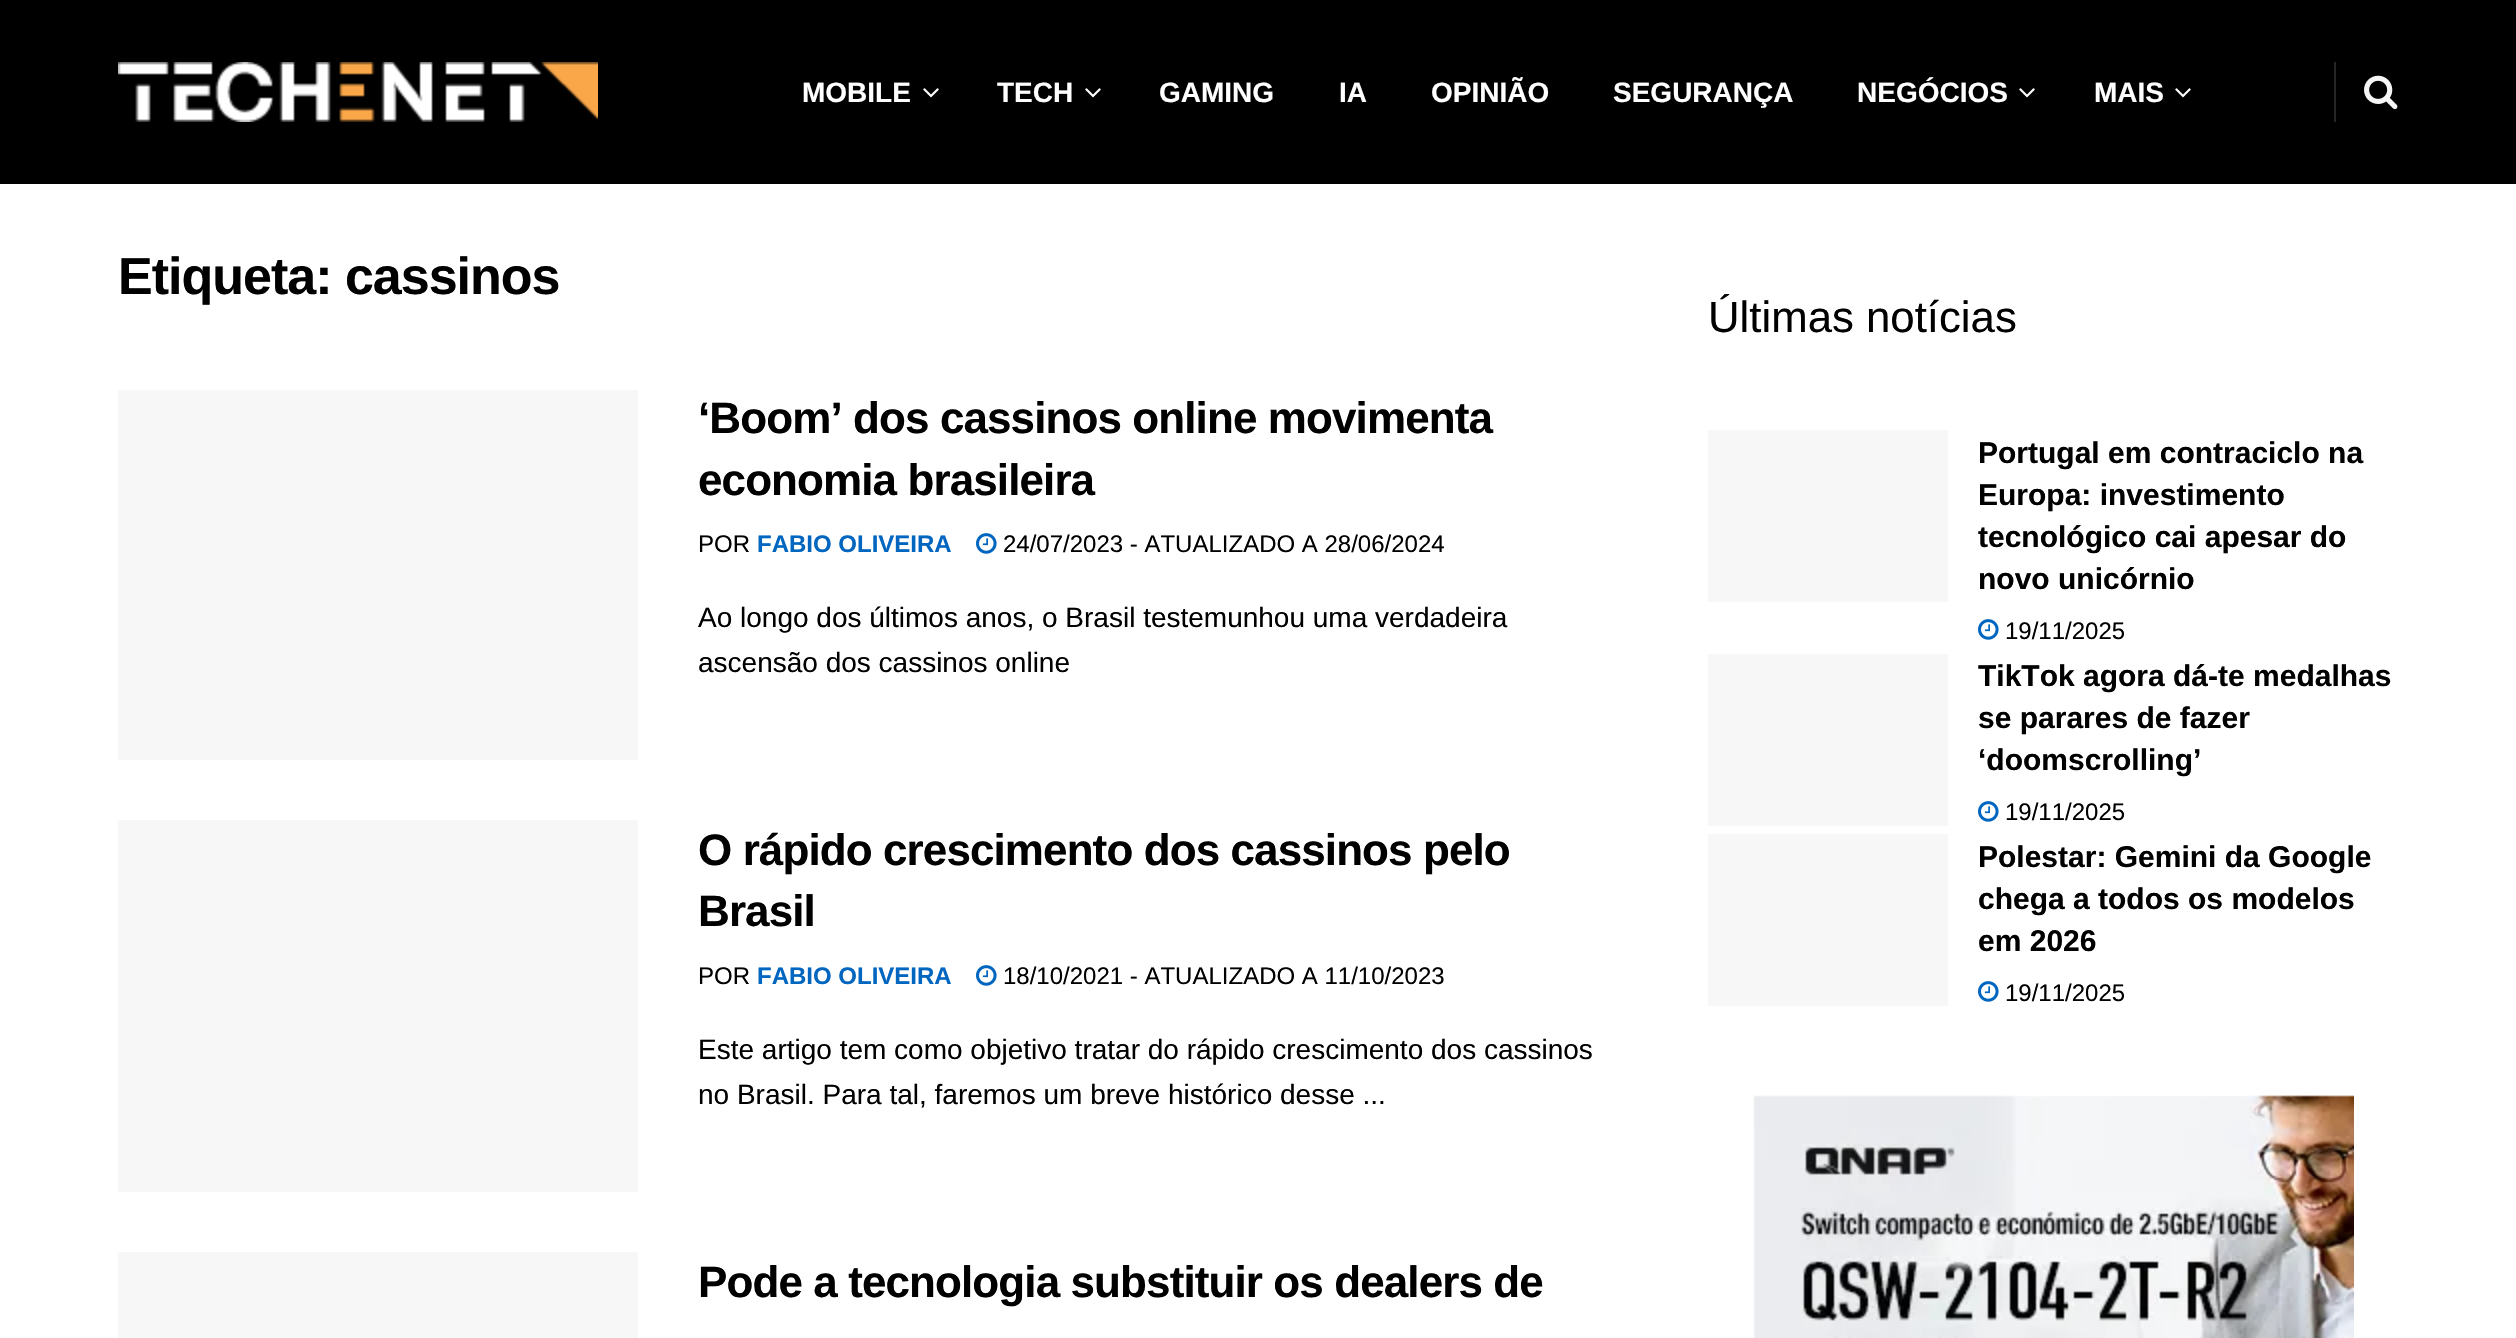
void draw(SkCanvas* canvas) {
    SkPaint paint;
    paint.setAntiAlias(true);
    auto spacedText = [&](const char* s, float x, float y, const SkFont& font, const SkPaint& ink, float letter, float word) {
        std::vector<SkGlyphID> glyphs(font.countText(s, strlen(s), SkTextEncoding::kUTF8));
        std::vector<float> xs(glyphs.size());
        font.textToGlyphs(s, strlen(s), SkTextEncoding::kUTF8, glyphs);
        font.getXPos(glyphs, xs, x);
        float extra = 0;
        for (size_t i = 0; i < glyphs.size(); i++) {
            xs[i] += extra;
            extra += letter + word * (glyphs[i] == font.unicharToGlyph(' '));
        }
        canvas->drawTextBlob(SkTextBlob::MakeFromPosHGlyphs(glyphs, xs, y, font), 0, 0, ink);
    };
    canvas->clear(0xFFFFFFFF);
    paint.setColor(0xFF000000);
    canvas->drawRect(SkRect::MakeXYWH(0, 0, 2516, 184), paint);
    canvas->drawImageRect(SkImages::DeferredFromEncodedData(SkData::MakeFromFileName("img1.png")), SkRect::MakeXYWH(118, 62, 480, 60), SkSamplingOptions());
    SkFont font1(fontMgr->matchFamilyStyle("Liberation Sans", SkFontStyle::Bold()), 28);
    font1.setSubpixel(true);
    paint.setColor(0xFFFFFFFF);
    canvas->drawString("MOBILE", 802, 102, font1, paint);
    canvas->drawImageRect(SkImages::DeferredFromEncodedData(SkData::MakeFromFileName("img2.png")), SkRect::MakeXYWH(923, 88, 16, 10), SkSamplingOptions());
    canvas->drawString("TECH", 997, 102, font1, paint);
    canvas->drawImageRect(SkImages::DeferredFromEncodedData(SkData::MakeFromFileName("img2.png")), SkRect::MakeXYWH(1085, 88, 16, 10), SkSamplingOptions());
    canvas->drawString("GAMING", 1159, 102, font1, paint);
    canvas->drawString("IA", 1339, 102, font1, paint);
    canvas->drawString("OPINIÃO", 1431, 102, font1, paint);
    canvas->drawString("SEGURANÇA", 1613, 102, font1, paint);
    canvas->drawString("NEGÓCIOS", 1857, 102, font1, paint);
    canvas->drawImageRect(SkImages::DeferredFromEncodedData(SkData::MakeFromFileName("img2.png")), SkRect::MakeXYWH(2019, 88, 16, 10), SkSamplingOptions());
    canvas->drawString("MAIS", 2094, 102, font1, paint);
    canvas->drawImageRect(SkImages::DeferredFromEncodedData(SkData::MakeFromFileName("img2.png")), SkRect::MakeXYWH(2175, 88, 16, 10), SkSamplingOptions());
    paint.setColor(0xFF262626);
    canvas->drawRect(SkRect::MakeXYWH(2334, 62, 2, 60), paint);
    canvas->drawImageRect(SkImages::DeferredFromEncodedData(SkData::MakeFromFileName("img3.png")), SkRect::MakeXYWH(2364, 75, 34, 35), SkSamplingOptions());
    SkFont font2(fontMgr->matchFamilyStyle("Liberation Sans", SkFontStyle::Bold()), 52);
    font2.setSubpixel(true);
    paint.setColor(0xFF000000);
    spacedText("Etiqueta: cassinos", 118, 294, font2, paint, -1, 0);
    paint.setColor(0xFFF7F7F7);
    canvas->drawRect(SkRect::MakeXYWH(118, 390, 520, 370), paint);
    SkFont font3(fontMgr->matchFamilyStyle("Liberation Sans", SkFontStyle::Bold()), 44);
    font3.setSubpixel(true);
    paint.setColor(0xFF000000);
    spacedText("‘Boom’ dos cassinos online movimenta", 698, 433, font3, paint, -0.9f, 0);
    spacedText("economia brasileira", 698, 495, font3, paint, -0.9f, 0);
    SkFont font4(fontMgr->matchFamilyStyle("Liberation Sans", SkFontStyle::Normal()), 24);
    font4.setSubpixel(true);
    canvas->drawString("POR", 698, 552, font4, paint);
    SkFont font5(fontMgr->matchFamilyStyle("Liberation Sans", SkFontStyle::Bold()), 24);
    font5.setSubpixel(true);
    paint.setColor(0xFF0066BF);
    canvas->drawString("FABIO OLIVEIRA", 757, 552, font5, paint);
    canvas->drawImageRect(SkImages::DeferredFromEncodedData(SkData::MakeFromFileName("img4.png")), SkRect::MakeXYWH(976, 533, 21, 21), SkSamplingOptions());
    paint.setColor(0xFF000000);
    canvas->drawString("24/07/2023 - ATUALIZADO A 28/06/2024", 1003, 552, font4, paint);
    SkFont font6(fontMgr->matchFamilyStyle("Liberation Sans", SkFontStyle::Normal()), 28);
    font6.setSubpixel(true);
    canvas->drawString("Ao longo dos últimos anos, o Brasil testemunhou uma verdadeira", 698, 627, font6, paint);
    canvas->drawString("ascensão dos cassinos online", 698, 672, font6, paint);
    paint.setColor(0xFFF7F7F7);
    canvas->drawRect(SkRect::MakeXYWH(118, 820, 520, 372), paint);
    paint.setColor(0xFF000000);
    spacedText("O rápido crescimento dos cassinos pelo", 698, 865, font3, paint, -0.9f, 0);
    spacedText("Brasil", 698, 926, font3, paint, -0.9f, 0);
    canvas->drawString("POR", 698, 984, font4, paint);
    paint.setColor(0xFF0066BF);
    canvas->drawString("FABIO OLIVEIRA", 757, 984, font5, paint);
    canvas->drawImageRect(SkImages::DeferredFromEncodedData(SkData::MakeFromFileName("img4.png")), SkRect::MakeXYWH(976, 965, 21, 21), SkSamplingOptions());
    paint.setColor(0xFF000000);
    canvas->drawString("18/10/2021 - ATUALIZADO A 11/10/2023", 1003, 984, font4, paint);
    canvas->drawString("Este artigo tem como objetivo tratar do rápido crescimento dos cassinos", 698, 1059, font6, paint);
    canvas->drawString("no Brasil. Para tal, faremos um breve histórico desse ...", 698, 1104, font6, paint);
    paint.setColor(0xFFF7F7F7);
    canvas->drawRect(SkRect::MakeXYWH(118, 1252, 520, 86), paint);
    paint.setColor(0xFF000000);
    spacedText("Pode a tecnologia substituir os dealers de", 698, 1297, font3, paint, -0.9f, 0);
    SkFont font7(fontMgr->matchFamilyStyle("Liberation Sans", SkFontStyle::Normal()), 43.75f);
    font7.setSubpixel(true);
    canvas->drawString("Últimas notícias", 1708, 332, font7, paint);
    paint.setColor(0xFFF7F7F7);
    canvas->drawRect(SkRect::MakeXYWH(1708, 430, 240, 172), paint);
    SkFont font8(fontMgr->matchFamilyStyle("Liberation Sans", SkFontStyle::Bold()), 30);
    font8.setSubpixel(true);
    paint.setColor(0xFF000000);
    canvas->drawString("Portugal em contraciclo na", 1978, 463, font8, paint);
    canvas->drawString("Europa: investimento", 1978, 505, font8, paint);
    canvas->drawString("tecnológico cai apesar do", 1978, 547, font8, paint);
    canvas->drawString("novo unicórnio", 1978, 589, font8, paint);
    canvas->drawImageRect(SkImages::DeferredFromEncodedData(SkData::MakeFromFileName("img4.png")), SkRect::MakeXYWH(1978, 619, 21, 21), SkSamplingOptions());
    canvas->drawString("19/11/2025", 2005, 639, font4, paint);
    paint.setColor(0xFFF7F7F7);
    canvas->drawRect(SkRect::MakeXYWH(1708, 654, 240, 172), paint);
    paint.setColor(0xFF000000);
    canvas->drawString("TikTok agora dá-te medalhas", 1978, 686, font8, paint);
    canvas->drawString("se parares de fazer", 1978, 728, font8, paint);
    canvas->drawString("‘doomscrolling’", 1978, 770, font8, paint);
    canvas->drawImageRect(SkImages::DeferredFromEncodedData(SkData::MakeFromFileName("img4.png")), SkRect::MakeXYWH(1978, 801, 21, 21), SkSamplingOptions());
    canvas->drawString("19/11/2025", 2005, 820, font4, paint);
    paint.setColor(0xFFF7F7F7);
    canvas->drawRect(SkRect::MakeXYWH(1708, 834, 240, 172), paint);
    paint.setColor(0xFF000000);
    canvas->drawString("Polestar: Gemini da Google", 1978, 867, font8, paint);
    canvas->drawString("chega a todos os modelos", 1978, 909, font8, paint);
    canvas->drawString("em 2026", 1978, 951, font8, paint);
    canvas->drawImageRect(SkImages::DeferredFromEncodedData(SkData::MakeFromFileName("img4.png")), SkRect::MakeXYWH(1978, 981, 21, 21), SkSamplingOptions());
    canvas->drawString("19/11/2025", 2005, 1001, font4, paint);
    canvas->drawImageRect(SkImages::DeferredFromEncodedData(SkData::MakeFromFileName("img5.png")), SkRect::MakeXYWH(1753, 1095, 601, 243), SkSamplingOptions());
}
